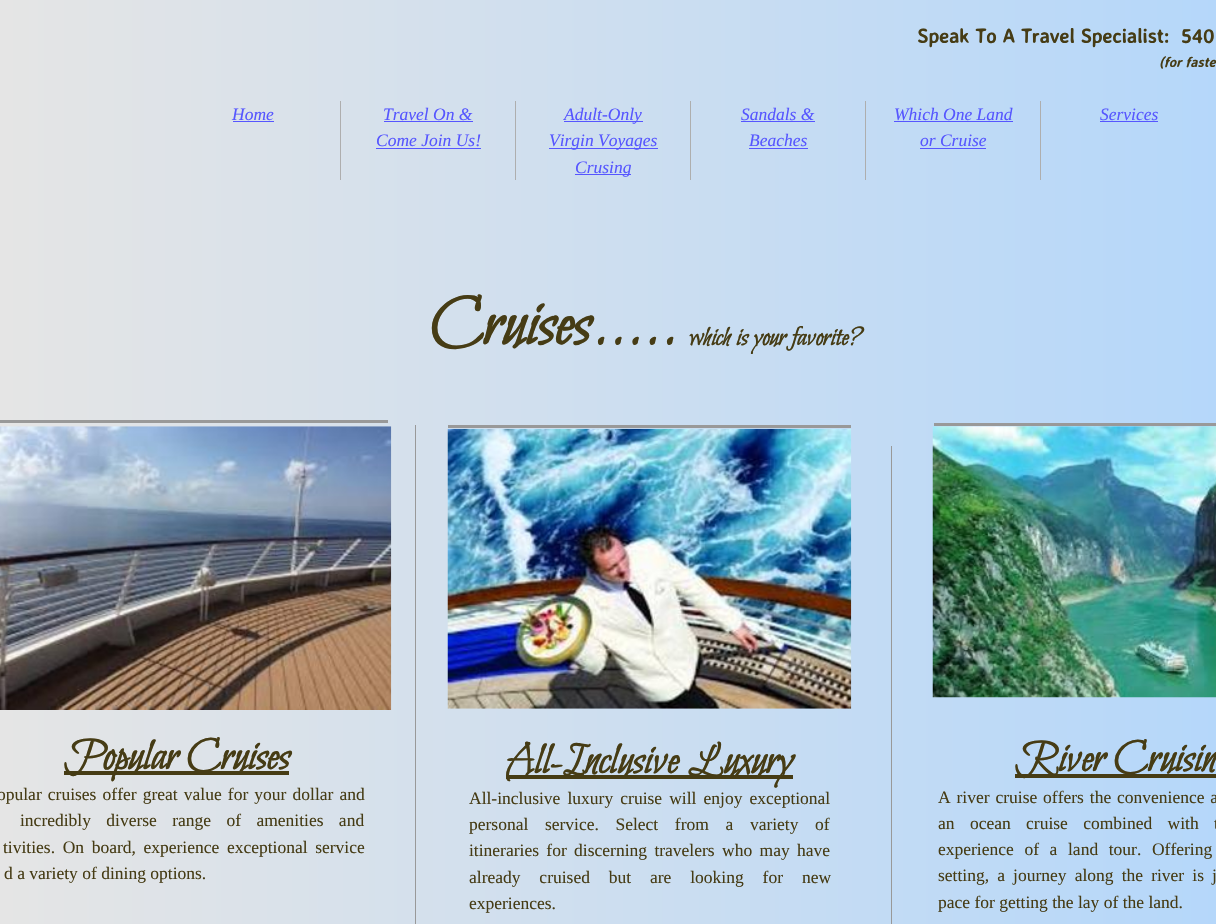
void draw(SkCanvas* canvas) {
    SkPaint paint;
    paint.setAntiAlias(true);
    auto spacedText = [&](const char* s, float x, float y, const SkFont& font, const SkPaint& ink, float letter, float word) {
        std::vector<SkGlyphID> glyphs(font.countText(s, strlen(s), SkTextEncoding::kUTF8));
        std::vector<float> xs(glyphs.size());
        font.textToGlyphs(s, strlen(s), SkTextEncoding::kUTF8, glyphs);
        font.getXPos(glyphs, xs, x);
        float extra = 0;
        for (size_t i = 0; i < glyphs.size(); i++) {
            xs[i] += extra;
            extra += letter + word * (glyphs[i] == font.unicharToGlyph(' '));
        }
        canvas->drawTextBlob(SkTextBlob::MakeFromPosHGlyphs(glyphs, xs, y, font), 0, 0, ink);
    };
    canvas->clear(0xFFFFFFFF);
    {
        const SkColor colors[] = {0xFFE5E5E5, 0xFFAAD4FF};
        const float stops[] = {0, 1};
        const SkPoint ends[] = {{0, 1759}, {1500, 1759}};
        paint.setShader(SkGradientShader::MakeLinear(ends, colors, stops, 2, SkTileMode::kClamp));
        paint.setAlpha(255);
    }
    canvas->drawRect(SkRect::MakeXYWH(0, 0, 1216, 924), paint);
    SkFont font1(fontMgr->matchFamilyStyle("Averia Sans Libre", SkFontStyle::Bold()), 20);
    font1.setSubpixel(true);
    paint.setShader(nullptr);
    paint.setColor(0xFF463C15);
    canvas->drawString("Speak To A Travel Specialist:  540", 917, 43, font1, paint);
    SkFont font2(fontMgr->matchFamilyStyle("Averia Sans Libre", SkFontStyle::BoldItalic()), 13.75f);
    font2.setSubpixel(true);
    canvas->drawString("(for faste", 1159, 67, font2, paint);
    paint.setColor(0xFFAEAEAE);
    canvas->drawRect(SkRect::MakeXYWH(340, 101, 1, 79), paint);
    SkFont font3(fontMgr->matchFamilyStyle("Liberation Serif", SkFontStyle::Italic()), 17.5f);
    font3.setSubpixel(true);
    paint.setColor(0xFF5656FF);
    canvas->drawString("Home", 232, 120, font3, paint);
    canvas->drawRect(SkRect::MakeXYWH(233, 121, 41, 1), paint);
    paint.setColor(0xFFAEAEAE);
    canvas->drawRect(SkRect::MakeXYWH(515, 101, 1, 79), paint);
    paint.setColor(0xFF5656FF);
    canvas->drawString("Travel On &", 383, 120, font3, paint);
    canvas->drawRect(SkRect::MakeXYWH(384, 121, 89, 1), paint);
    canvas->drawString("Come Join Us!", 376, 146, font3, paint);
    canvas->drawRect(SkRect::MakeXYWH(376, 148, 105, 1), paint);
    paint.setColor(0xFFAEAEAE);
    canvas->drawRect(SkRect::MakeXYWH(690, 101, 1, 79), paint);
    paint.setColor(0xFF5656FF);
    canvas->drawRect(SkRect::MakeXYWH(564, 121, 79, 1), paint);
    canvas->drawString("Adult-Only", 564, 120, font3, paint);
    canvas->drawRect(SkRect::MakeXYWH(549, 148, 109, 1), paint);
    canvas->drawString("Virgin Voyages", 549, 146, font3, paint);
    canvas->drawRect(SkRect::MakeXYWH(575, 174, 56, 1), paint);
    canvas->drawString("Crusing", 575, 173, font3, paint);
    paint.setColor(0xFFAEAEAE);
    canvas->drawRect(SkRect::MakeXYWH(865, 101, 1, 79), paint);
    paint.setColor(0xFF5656FF);
    canvas->drawString("Sandals &", 741, 120, font3, paint);
    canvas->drawRect(SkRect::MakeXYWH(741, 121, 74, 1), paint);
    canvas->drawString("Beaches", 749, 146, font3, paint);
    canvas->drawRect(SkRect::MakeXYWH(749, 148, 59, 1), paint);
    paint.setColor(0xFFAEAEAE);
    canvas->drawRect(SkRect::MakeXYWH(1040, 101, 1, 79), paint);
    paint.setColor(0xFF5656FF);
    canvas->drawString("Which One Land", 894, 120, font3, paint);
    canvas->drawRect(SkRect::MakeXYWH(894, 121, 119, 1), paint);
    canvas->drawString("or Cruise", 920, 146, font3, paint);
    canvas->drawRect(SkRect::MakeXYWH(920, 148, 66, 1), paint);
    canvas->drawString("Services", 1100, 120, font3, paint);
    canvas->drawRect(SkRect::MakeXYWH(1100, 121, 58, 1), paint);
    SkFont font4(fontMgr->matchFamilyStyle("Bilbo Swash Caps", SkFontStyle::Bold()), 70);
    font4.setSubpixel(true);
    paint.setColor(0xFF463C15);
    canvas->drawString("Cruises.....", 430, 344, font4, paint);
    SkFont font5(fontMgr->matchFamilyStyle("Bilbo Swash Caps", SkFontStyle::Bold()), 27.5f);
    font5.setSubpixel(true);
    canvas->drawString("which is your favorite?", 689, 345, font5, paint);
    paint.setColor(0xFF999999);
    canvas->drawRect(SkRect::MakeXYWH(0, 420, 388, 3), paint);
    canvas->drawRect(SkRect::MakeXYWH(934, 423, 282, 3), paint);
    canvas->drawImageRect(SkImages::DeferredFromEncodedData(SkData::MakeFromFileName("img1.png")), SkRect::MakeXYWH(0, 426, 392, 284), SkSamplingOptions());
    canvas->drawRect(SkRect::MakeXYWH(415, 425, 1, 499), paint);
    canvas->drawRect(SkRect::MakeXYWH(448, 425, 403, 3), paint);
    canvas->drawImageRect(SkImages::DeferredFromEncodedData(SkData::MakeFromFileName("img2.png")), SkRect::MakeXYWH(932, 426, 284, 272), SkSamplingOptions());
    paint.setColor(0xFF463C15);
    canvas->drawRect(SkRect::MakeXYWH(64, 771, 225, 4), paint);
    SkFont font6(fontMgr->matchFamilyStyle("Bilbo Swash Caps", SkFontStyle::Bold()), 45);
    font6.setSubpixel(true);
    canvas->drawString("Popular Cruises", 64, 769, font6, paint);
    SkFont font7(fontMgr->matchFamilyStyle("Liberation Serif", SkFontStyle::Normal()), 17.5f);
    font7.setSubpixel(true);
    spacedText("opular cruises offer great value for your dollar and", -3, 800, font7, paint, 0, 1.75f);
    spacedText("incredibly diverse range of amenities and", 20, 826, font7, paint, 0, 11);
    spacedText("tivities. On board, experience exceptional service", 3, 853, font7, paint, 0, 3.25f);
    canvas->drawString("d a variety of dining options.", 4, 879, font7, paint);
    canvas->drawImageRect(SkImages::DeferredFromEncodedData(SkData::MakeFromFileName("img3.png")), SkRect::MakeXYWH(447, 428, 405, 281), SkSamplingOptions());
    paint.setColor(0xFF999999);
    canvas->drawRect(SkRect::MakeXYWH(891, 446, 1, 478), paint);
    paint.setColor(0xFF463C15);
    canvas->drawRect(SkRect::MakeXYWH(1015, 774, 201, 4), paint);
    canvas->drawString("River Cruisin", 1015, 771, font6, paint);
    spacedText("A river cruise offers the convenience a", 938, 803, font7, paint, 0, 1.5f);
    spacedText("an ocean cruise combined with t", 938, 829, font7, paint, 0, 11);
    spacedText("experience of a land tour. Offering", 938, 855, font7, paint, 0, 6.25f);
    spacedText("setting, a journey along the river is j", 938, 881, font7, paint, 0, 3.75f);
    canvas->drawString("pace for getting the lay of the land.", 938, 908, font7, paint);
    canvas->drawRect(SkRect::MakeXYWH(506, 775, 287, 4), paint);
    canvas->drawString("All-Inclusive Luxury", 506, 773, font6, paint);
    spacedText("All-inclusive luxury cruise will enjoy exceptional", 469, 804, font7, paint, 0, 2.75f);
    spacedText("personal service. Select from a variety of", 469, 830, font7, paint, 0, 12.25f);
    spacedText("itineraries for discerning travelers who may have", 469, 856, font7, paint, 0, 3);
    spacedText("already cruised but are looking for new", 469, 883, font7, paint, 0, 14.5f);
    canvas->drawString("experiences.", 469, 909, font7, paint);
}
